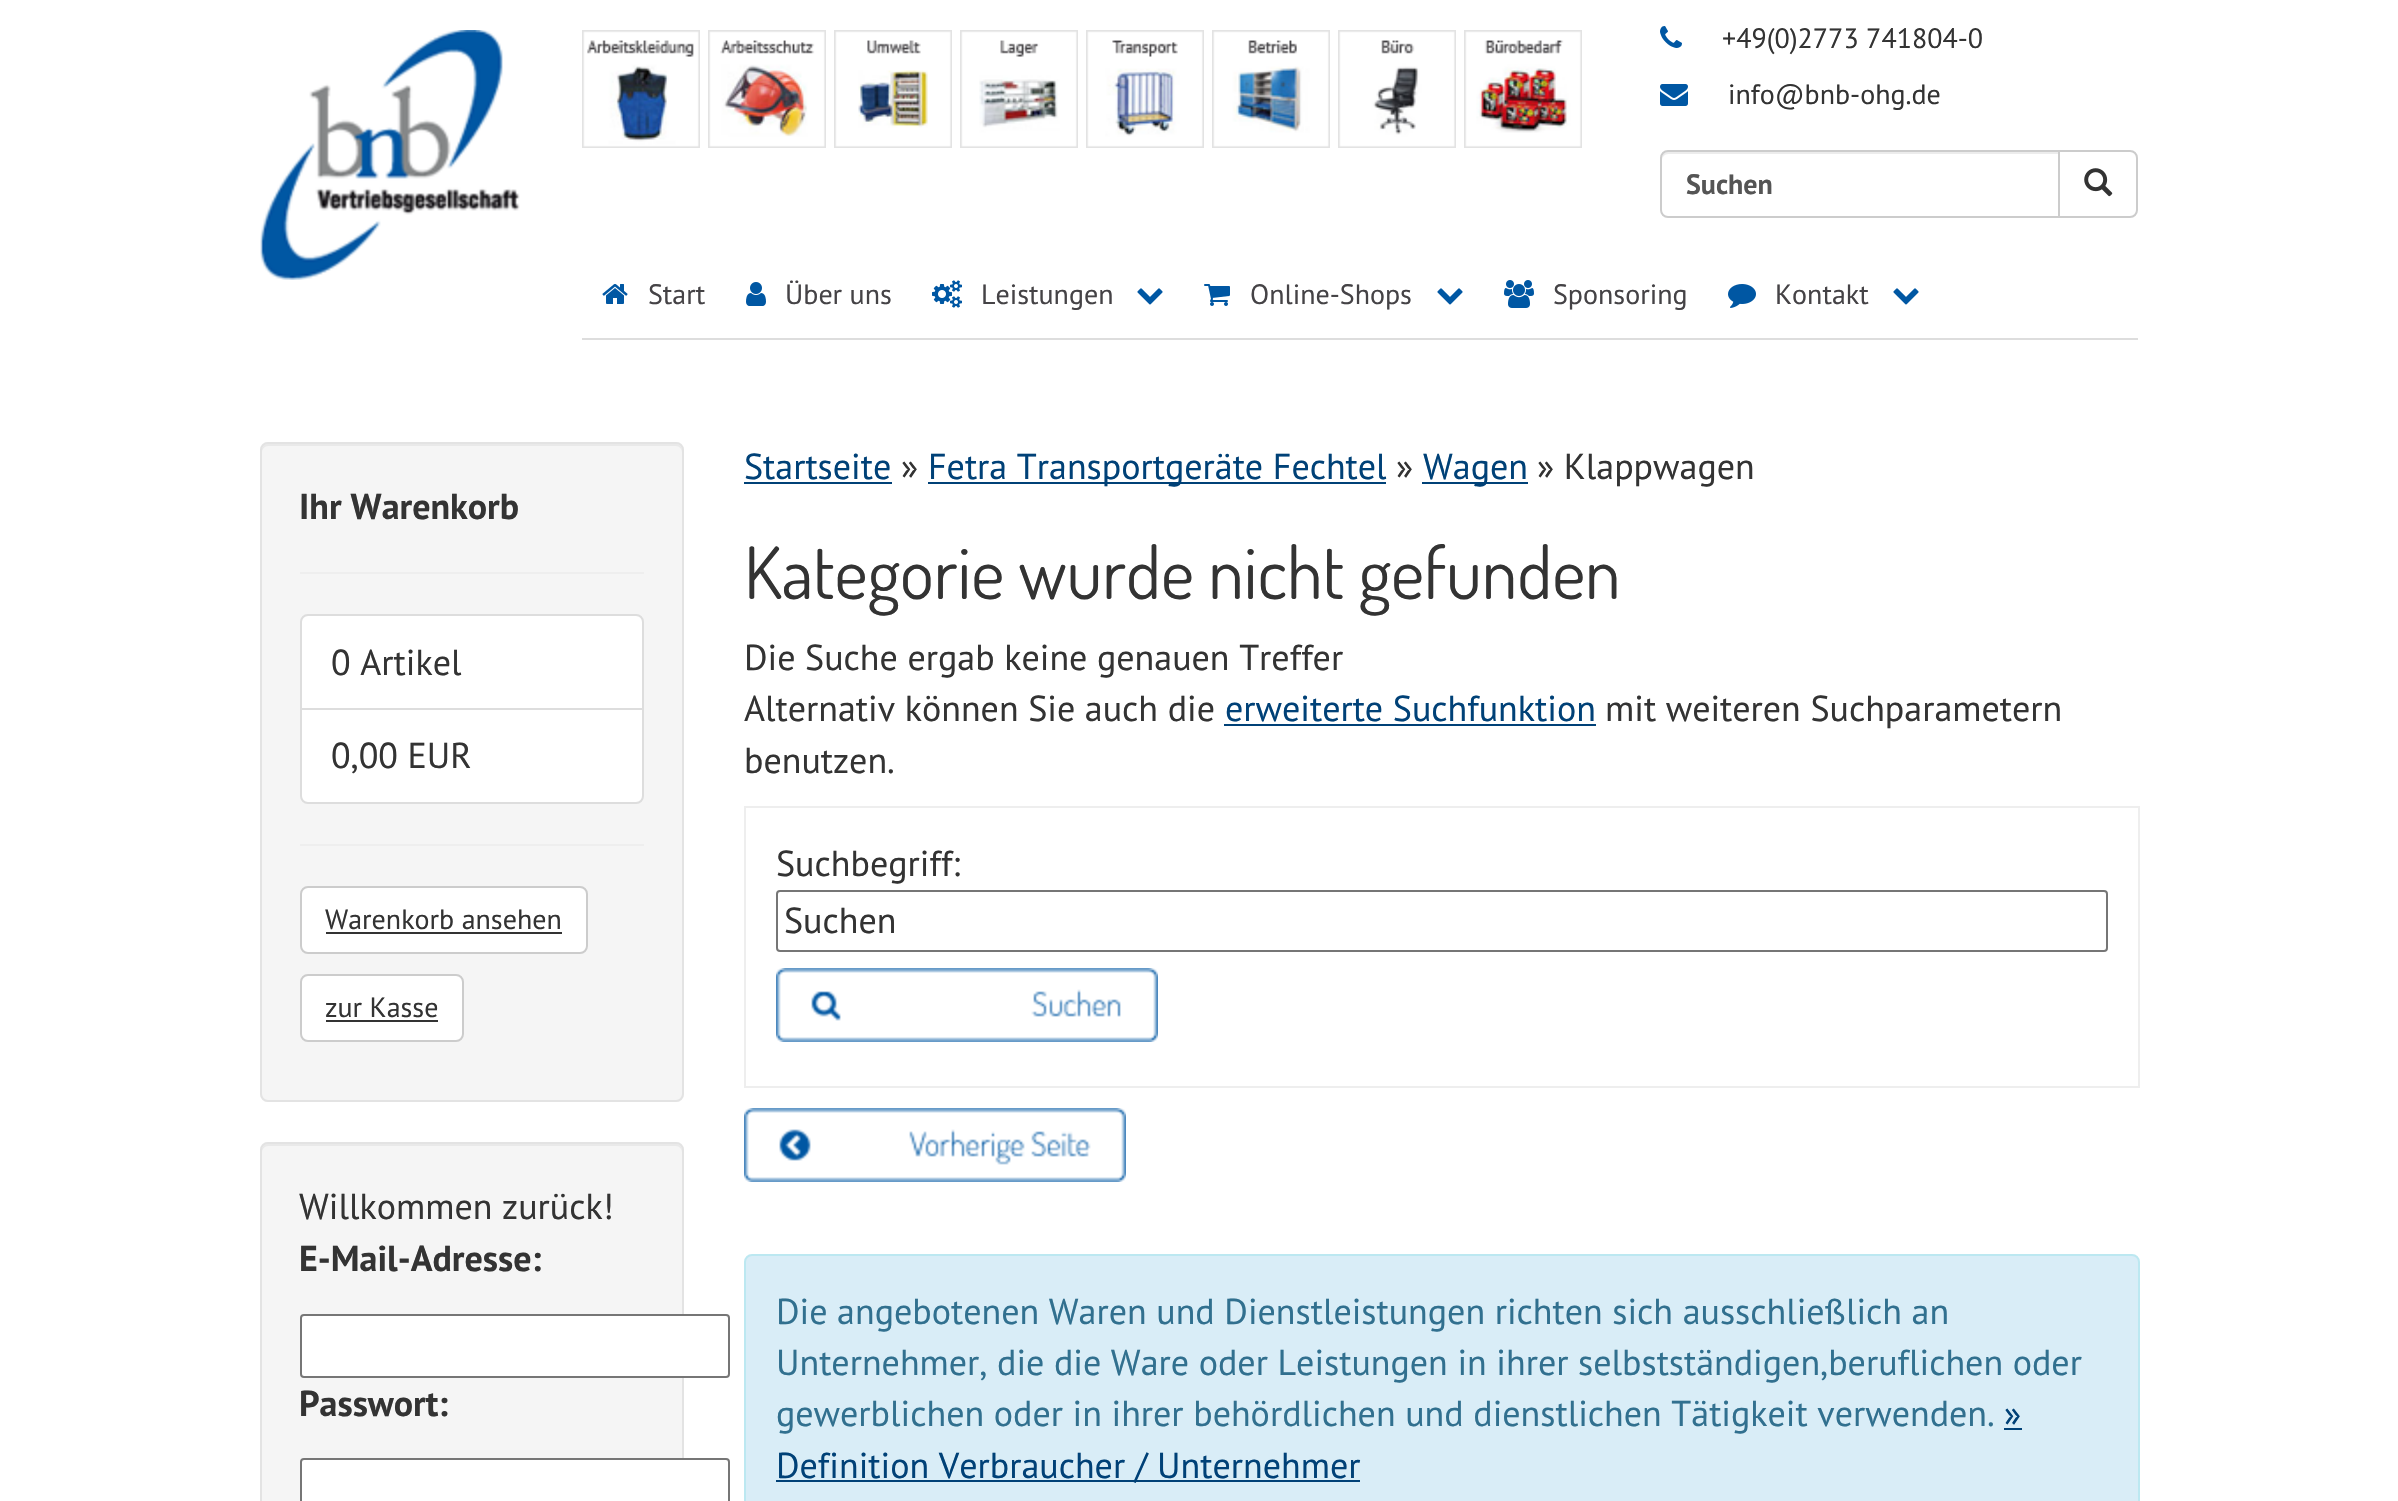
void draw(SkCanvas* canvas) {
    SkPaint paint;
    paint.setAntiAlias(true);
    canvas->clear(0xFFFFFFFF);
    canvas->drawImageRect(SkImages::DeferredFromEncodedData(SkData::MakeFromFileName("img1.png")), SkRect::MakeXYWH(260, 30, 260, 250), SkSamplingOptions());
    canvas->drawImageRect(SkImages::DeferredFromEncodedData(SkData::MakeFromFileName("img2.png")), SkRect::MakeXYWH(582, 30, 118, 118), SkSamplingOptions());
    canvas->drawImageRect(SkImages::DeferredFromEncodedData(SkData::MakeFromFileName("img3.png")), SkRect::MakeXYWH(708, 30, 118, 118), SkSamplingOptions());
    canvas->drawImageRect(SkImages::DeferredFromEncodedData(SkData::MakeFromFileName("img4.png")), SkRect::MakeXYWH(834, 30, 118, 118), SkSamplingOptions());
    canvas->drawImageRect(SkImages::DeferredFromEncodedData(SkData::MakeFromFileName("img5.png")), SkRect::MakeXYWH(960, 30, 118, 118), SkSamplingOptions());
    canvas->drawImageRect(SkImages::DeferredFromEncodedData(SkData::MakeFromFileName("img6.png")), SkRect::MakeXYWH(1086, 30, 118, 118), SkSamplingOptions());
    canvas->drawImageRect(SkImages::DeferredFromEncodedData(SkData::MakeFromFileName("img7.png")), SkRect::MakeXYWH(1212, 30, 118, 118), SkSamplingOptions());
    canvas->drawImageRect(SkImages::DeferredFromEncodedData(SkData::MakeFromFileName("img8.png")), SkRect::MakeXYWH(1338, 30, 118, 118), SkSamplingOptions());
    canvas->drawImageRect(SkImages::DeferredFromEncodedData(SkData::MakeFromFileName("img9.png")), SkRect::MakeXYWH(1464, 30, 118, 118), SkSamplingOptions());
    canvas->drawImageRect(SkImages::DeferredFromEncodedData(SkData::MakeFromFileName("img10.png")), SkRect::MakeXYWH(1660, 26, 22, 22), SkSamplingOptions());
    SkFont font1(fontMgr->matchFamilyStyle("PT Sans", SkFontStyle::Normal()), 28);
    font1.setSubpixel(true);
    paint.setColor(0xFF333333);
    canvas->drawString("+49(0)2773 741804-0", 1722, 48, font1, paint);
    canvas->drawImageRect(SkImages::DeferredFromEncodedData(SkData::MakeFromFileName("img11.png")), SkRect::MakeXYWH(1660, 84, 28, 22), SkSamplingOptions());
    canvas->drawString("info@bnb-ohg.de", 1728, 104, font1, paint);
    paint.setColor(0xFFECECEC);
    canvas->drawPath(SkPathBuilder().moveTo(1668, 154).lineTo(2058, 154).lineTo(2058, 152).lineTo(1668, 152).cubicTo(1663, 152, 1662, 156, 1662, 160).cubicTo(1662, 157, 1665, 154, 1668, 154).close().detach(), paint);
    paint.setStyle(SkPaint::kStroke_Style);
    paint.setStrokeWidth(2);
    paint.setColor(0xFFCCCCCC);
    canvas->drawPath(SkPathBuilder().moveTo(1668, 151).lineTo(2059, 151).lineTo(2059, 217).lineTo(1668, 217).cubicTo(1664, 217, 1661, 214, 1661, 210).lineTo(1661, 158).cubicTo(1661, 154, 1664, 151, 1668, 151).close().detach(), paint);
    SkFont font2(fontMgr->matchFamilyStyle("PT Sans", SkFontStyle::Bold()), 28);
    font2.setSubpixel(true);
    paint.setStyle(SkPaint::kFill_Style);
    paint.setColor(0xFF555555);
    canvas->drawString("Suchen", 1686, 194, font2, paint);
    paint.setColor(0xFFFFFFFF);
    canvas->drawPath(SkPathBuilder().moveTo(2059, 151).lineTo(2130, 151).cubicTo(2134, 151, 2137, 154, 2137, 158).lineTo(2137, 210).cubicTo(2137, 214, 2134, 217, 2130, 217).lineTo(2059, 217).close().detach(), paint);
    paint.setStyle(SkPaint::kStroke_Style);
    paint.setColor(0xFFCCCCCC);
    canvas->drawPath(SkPathBuilder().moveTo(2059, 151).lineTo(2130, 151).cubicTo(2134, 151, 2137, 154, 2137, 158).lineTo(2137, 210).cubicTo(2137, 214, 2134, 217, 2130, 217).lineTo(2059, 217).close().detach(), paint);
    canvas->drawImageRect(SkImages::DeferredFromEncodedData(SkData::MakeFromFileName("img12.png")), SkRect::MakeXYWH(2084, 168, 29, 29), SkSamplingOptions());
    paint.setStyle(SkPaint::kFill_Style);
    paint.setColor(0xFFDDDDDD);
    canvas->drawRect(SkRect::MakeXYWH(582, 338, 1556, 2), paint);
    canvas->drawImageRect(SkImages::DeferredFromEncodedData(SkData::MakeFromFileName("img13.png")), SkRect::MakeXYWH(602, 284, 26, 20), SkSamplingOptions());
    paint.setColor(0xFF454346);
    canvas->drawString("Start", 648, 304, font1, paint);
    canvas->drawImageRect(SkImages::DeferredFromEncodedData(SkData::MakeFromFileName("img14.png")), SkRect::MakeXYWH(746, 282, 20, 24), SkSamplingOptions());
    canvas->drawString("Über uns", 785, 304, font1, paint);
    canvas->drawImageRect(SkImages::DeferredFromEncodedData(SkData::MakeFromFileName("img15.png")), SkRect::MakeXYWH(932, 280, 30, 28), SkSamplingOptions());
    canvas->drawString("Leistungen", 981, 304, font1, paint);
    canvas->drawImageRect(SkImages::DeferredFromEncodedData(SkData::MakeFromFileName("img16.png")), SkRect::MakeXYWH(1137, 288, 26, 17), SkSamplingOptions());
    canvas->drawImageRect(SkImages::DeferredFromEncodedData(SkData::MakeFromFileName("img17.png")), SkRect::MakeXYWH(1204, 284, 26, 22), SkSamplingOptions());
    canvas->drawString("Online-Shops", 1250, 304, font1, paint);
    canvas->drawImageRect(SkImages::DeferredFromEncodedData(SkData::MakeFromFileName("img16.png")), SkRect::MakeXYWH(1437, 288, 26, 17), SkSamplingOptions());
    canvas->drawImageRect(SkImages::DeferredFromEncodedData(SkData::MakeFromFileName("img18.png")), SkRect::MakeXYWH(1504, 280, 30, 28), SkSamplingOptions());
    canvas->drawString("Sponsoring", 1553, 304, font1, paint);
    canvas->drawImageRect(SkImages::DeferredFromEncodedData(SkData::MakeFromFileName("img19.png")), SkRect::MakeXYWH(1728, 284, 28, 24), SkSamplingOptions());
    canvas->drawString("Kontakt", 1775, 304, font1, paint);
    canvas->drawImageRect(SkImages::DeferredFromEncodedData(SkData::MakeFromFileName("img16.png")), SkRect::MakeXYWH(1893, 288, 26, 17), SkSamplingOptions());
    paint.setColor(0xFFF5F5F5);
    canvas->drawRoundRect(SkRect::MakeXYWH(260, 442, 424, 660), 8, 8, paint);
    paint.setColor(0xFFE9E9E9);
    canvas->drawPath(SkPathBuilder().moveTo(268, 446).lineTo(676, 446).cubicTo(679, 446, 682, 449, 682, 452).lineTo(682, 450).cubicTo(682, 447, 679, 444, 676, 444).lineTo(268, 444).cubicTo(265, 444, 262, 447, 262, 450).lineTo(262, 452).cubicTo(262, 449, 265, 446, 268, 446).close().detach(), paint);
    paint.setStyle(SkPaint::kStroke_Style);
    paint.setColor(0xFFE3E3E3);
    canvas->drawRoundRect(SkRect::MakeXYWH(261, 443, 422, 658), 7, 7, paint);
    SkFont font3(fontMgr->matchFamilyStyle("PT Sans", SkFontStyle::Bold()), 36);
    font3.setSubpixel(true);
    paint.setStyle(SkPaint::kFill_Style);
    paint.setColor(0xFF333333);
    canvas->drawString("Ihr Warenkorb", 299, 519, font3, paint);
    paint.setColor(0xFFEEEEEE);
    canvas->drawRect(SkRect::MakeXYWH(300, 572, 344, 2), paint);
    paint.setColor(0xFFFFFFFF);
    canvas->drawPath(SkPathBuilder().moveTo(308, 615).lineTo(636, 615).cubicTo(640, 615, 643, 618, 643, 622).lineTo(643, 709).lineTo(301, 709).lineTo(301, 622).cubicTo(301, 618, 304, 615, 308, 615).close().detach(), paint);
    paint.setStyle(SkPaint::kStroke_Style);
    paint.setColor(0xFFDDDDDD);
    canvas->drawPath(SkPathBuilder().moveTo(308, 615).lineTo(636, 615).cubicTo(640, 615, 643, 618, 643, 622).lineTo(643, 709).lineTo(301, 709).lineTo(301, 622).cubicTo(301, 618, 304, 615, 308, 615).close().detach(), paint);
    SkFont font4(fontMgr->matchFamilyStyle("PT Sans", SkFontStyle::Normal()), 36);
    font4.setSubpixel(true);
    paint.setStyle(SkPaint::kFill_Style);
    paint.setColor(0xFF333333);
    canvas->drawString("0 Artikel", 331, 675, font4, paint);
    paint.setColor(0xFFFFFFFF);
    canvas->drawPath(SkPathBuilder().moveTo(301, 709).lineTo(643, 709).lineTo(643, 796).cubicTo(643, 800, 640, 803, 636, 803).lineTo(308, 803).cubicTo(304, 803, 301, 800, 301, 796).close().detach(), paint);
    paint.setStyle(SkPaint::kStroke_Style);
    paint.setColor(0xFFDDDDDD);
    canvas->drawPath(SkPathBuilder().moveTo(301, 709).lineTo(643, 709).lineTo(643, 796).cubicTo(643, 800, 640, 803, 636, 803).lineTo(308, 803).cubicTo(304, 803, 301, 800, 301, 796).close().detach(), paint);
    paint.setStyle(SkPaint::kFill_Style);
    paint.setColor(0xFF333333);
    canvas->drawString("0,00 EUR", 331, 768, font4, paint);
    paint.setColor(0xFFEEEEEE);
    canvas->drawRect(SkRect::MakeXYWH(300, 844, 344, 2), paint);
    paint.setColor(0xFFFFFFFF);
    canvas->drawRoundRect(SkRect::MakeXYWH(301, 887, 286, 66), 7, 7, paint);
    paint.setStyle(SkPaint::kStroke_Style);
    paint.setColor(0xFFCCCCCC);
    canvas->drawRoundRect(SkRect::MakeXYWH(301, 887, 286, 66), 7, 7, paint);
    paint.setStyle(SkPaint::kFill_Style);
    paint.setColor(0xFF333333);
    canvas->drawString("Warenkorb ansehen", 325, 929, font1, paint);
    canvas->drawRect(SkRect::MakeXYWH(326, 932, 236, 2), paint);
    paint.setColor(0xFFFFFFFF);
    canvas->drawRoundRect(SkRect::MakeXYWH(301, 975, 162, 66), 7, 7, paint);
    paint.setStyle(SkPaint::kStroke_Style);
    paint.setColor(0xFFCCCCCC);
    canvas->drawRoundRect(SkRect::MakeXYWH(301, 975, 162, 66), 7, 7, paint);
    paint.setStyle(SkPaint::kFill_Style);
    paint.setColor(0xFF333333);
    canvas->drawString("zur Kasse", 325, 1017, font1, paint);
    canvas->drawRect(SkRect::MakeXYWH(326, 1020, 112, 2), paint);
    paint.setColor(0xFFF5F5F5);
    canvas->drawRoundRect(SkRect::MakeXYWH(260, 1142, 424, 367), 8, 8, paint);
    paint.setColor(0xFFE9E9E9);
    canvas->drawPath(SkPathBuilder().moveTo(268, 1146).lineTo(676, 1146).cubicTo(679, 1146, 682, 1149, 682, 1152).lineTo(682, 1150).cubicTo(682, 1147, 679, 1144, 676, 1144).lineTo(268, 1144).cubicTo(265, 1144, 262, 1147, 262, 1150).lineTo(262, 1152).cubicTo(262, 1149, 265, 1146, 268, 1146).close().detach(), paint);
    paint.setStyle(SkPaint::kStroke_Style);
    paint.setColor(0xFFE3E3E3);
    canvas->drawRoundRect(SkRect::MakeXYWH(261, 1143, 422, 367), 7, 7, paint);
    paint.setStyle(SkPaint::kFill_Style);
    paint.setColor(0xFF333333);
    canvas->drawString("Willkommen zurück!", 299, 1219, font4, paint);
    canvas->drawString("E-Mail-Adresse:", 299, 1271, font3, paint);
    paint.setColor(0xFFFFFFFF);
    canvas->drawRoundRect(SkRect::MakeXYWH(301, 1315, 428, 62), 3, 3, paint);
    paint.setStyle(SkPaint::kStroke_Style);
    paint.setColor(0xFF767676);
    canvas->drawRoundRect(SkRect::MakeXYWH(301, 1315, 428, 62), 3, 3, paint);
    paint.setStyle(SkPaint::kFill_Style);
    paint.setColor(0xFF333333);
    canvas->drawString("Passwort:", 299, 1416, font3, paint);
    paint.setColor(0xFFFFFFFF);
    canvas->drawRoundRect(SkRect::MakeXYWH(301, 1459, 428, 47), 3, 3, paint);
    paint.setStyle(SkPaint::kStroke_Style);
    paint.setColor(0xFF767676);
    canvas->drawRoundRect(SkRect::MakeXYWH(301, 1459, 428, 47), 3, 3, paint);
    paint.setStyle(SkPaint::kFill_Style);
    paint.setColor(0xFF004177);
    canvas->drawString("Startseite", 744, 479, font4, paint);
    canvas->drawRect(SkRect::MakeXYWH(744, 482, 148, 2), paint);
    paint.setColor(0xFF333333);
    canvas->drawString("»", 901, 479, font4, paint);
    paint.setColor(0xFF004177);
    canvas->drawRect(SkRect::MakeXYWH(928, 482, 458, 2), paint);
    canvas->drawString("Fetra Transportgeräte Fechtel", 928, 479, font4, paint);
    paint.setColor(0xFF333333);
    canvas->drawString("»", 1396, 479, font4, paint);
    paint.setColor(0xFF004177);
    canvas->drawRect(SkRect::MakeXYWH(1422, 482, 106, 2), paint);
    canvas->drawString("Wagen", 1423, 479, font4, paint);
    paint.setColor(0xFF333333);
    canvas->drawString("» Klappwagen", 1537, 479, font4, paint);
    SkFont font5(fontMgr->matchFamilyStyle("Dosis", SkFontStyle::Normal()), 72);
    font5.setSubpixel(true);
    canvas->drawString("Kategorie wurde nicht gefunden", 744, 599, font5, paint);
    canvas->drawString("Die Suche ergab keine genauen Treffer", 744, 670, font4, paint);
    canvas->drawString("Alternativ können Sie auch die", 744, 721, font4, paint);
    paint.setColor(0xFF004177);
    canvas->drawString("erweiterte Suchfunktion", 1225, 721, font4, paint);
    canvas->drawRect(SkRect::MakeXYWH(1224, 724, 372, 2), paint);
    paint.setColor(0xFF333333);
    canvas->drawString("mit weiteren Suchparametern", 1605, 721, font4, paint);
    canvas->drawString("benutzen.", 744, 773, font4, paint);
    paint.setStyle(SkPaint::kStroke_Style);
    paint.setColor(0xFFEEEEEE);
    canvas->drawRect(SkRect::MakeXYWH(745, 807, 1394, 280), paint);
    paint.setStyle(SkPaint::kFill_Style);
    paint.setColor(0xFF333333);
    canvas->drawString("Suchbegriff:", 776, 876, font4, paint);
    paint.setStyle(SkPaint::kStroke_Style);
    paint.setColor(0xFF767676);
    canvas->drawRoundRect(SkRect::MakeXYWH(777, 891, 1330, 60), 3, 3, paint);
    paint.setStyle(SkPaint::kFill_Style);
    paint.setColor(0xFF333333);
    canvas->drawString("Suchen", 784, 933, font4, paint);
    canvas->drawImageRect(SkImages::DeferredFromEncodedData(SkData::MakeFromFileName("img20.png")), SkRect::MakeXYWH(776, 968, 382, 74), SkSamplingOptions());
    canvas->drawImageRect(SkImages::DeferredFromEncodedData(SkData::MakeFromFileName("img21.png")), SkRect::MakeXYWH(744, 1108, 382, 74), SkSamplingOptions());
    paint.setColor(0xFFD9EDF7);
    canvas->drawRoundRect(SkRect::MakeXYWH(745, 1255, 1394, 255), 7, 7, paint);
    paint.setStyle(SkPaint::kStroke_Style);
    paint.setColor(0xFFBCE8F1);
    canvas->drawRoundRect(SkRect::MakeXYWH(745, 1255, 1394, 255), 7, 7, paint);
    paint.setStyle(SkPaint::kFill_Style);
    paint.setColor(0xFF31708F);
    canvas->drawString("Die angebotenen Waren und Dienstleistungen richten sich ausschließlich an", 776, 1324, font4, paint);
    canvas->drawString("Unternehmer, die die Ware oder Leistungen in ihrer selbstständigen,beruflichen oder", 776, 1375, font4, paint);
    canvas->drawString("gewerblichen oder in ihrer behördlichen und dienstlichen Tätigkeit verwenden.", 776, 1426, font4, paint);
    paint.setColor(0xFF004177);
    canvas->drawString("»", 2004, 1426, font4, paint);
    canvas->drawRect(SkRect::MakeXYWH(2004, 1428, 18, 2), paint);
    canvas->drawRect(SkRect::MakeXYWH(776, 1480, 584, 2), paint);
    canvas->drawString("Definition Verbraucher / Unternehmer", 776, 1478, font4, paint);
}
